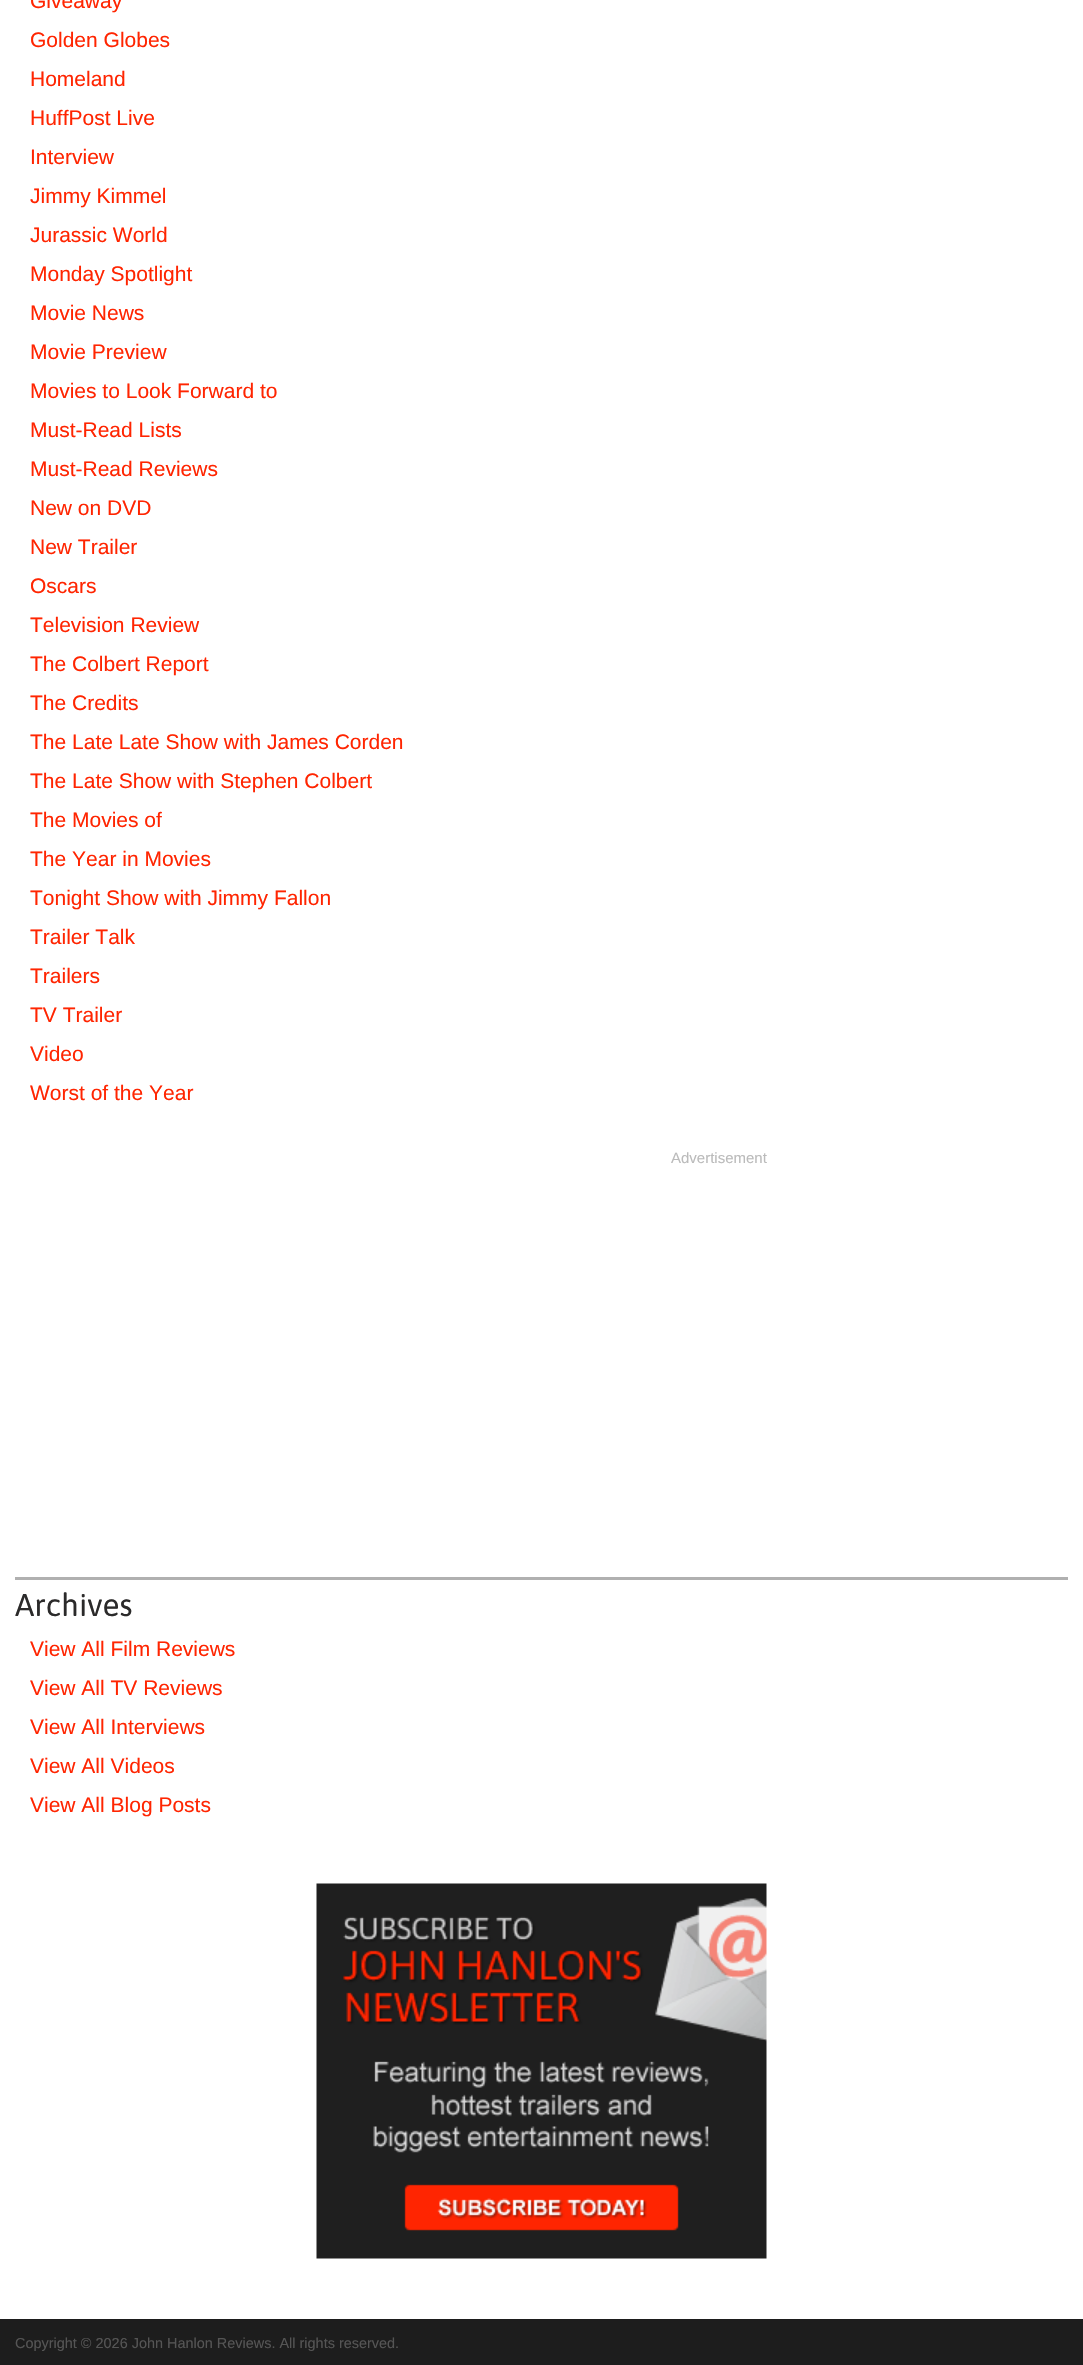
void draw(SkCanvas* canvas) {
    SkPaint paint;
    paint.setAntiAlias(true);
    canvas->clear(0xFFFFFFFF);
    SkFont font1(fontMgr->matchFamilyStyle("Liberation Sans", SkFontStyle::Normal()), 21);
    font1.setSubpixel(true);
    paint.setColor(0xFFFF2501);
    canvas->drawString("Giveaway", 30, 8, font1, paint);
    canvas->drawString("Golden Globes", 30, 47, font1, paint);
    canvas->drawString("Homeland", 30, 86, font1, paint);
    canvas->drawString("HuffPost Live", 30, 125, font1, paint);
    canvas->drawString("Interview", 30, 164, font1, paint);
    canvas->drawString("Jimmy Kimmel", 30, 203, font1, paint);
    canvas->drawString("Jurassic World", 30, 242, font1, paint);
    canvas->drawString("Monday Spotlight", 30, 281, font1, paint);
    canvas->drawString("Movie News", 30, 320, font1, paint);
    canvas->drawString("Movie Preview", 30, 359, font1, paint);
    canvas->drawString("Movies to Look Forward to", 30, 398, font1, paint);
    canvas->drawString("Must-Read Lists", 30, 437, font1, paint);
    canvas->drawString("Must-Read Reviews", 30, 476, font1, paint);
    canvas->drawString("New on DVD", 30, 515, font1, paint);
    canvas->drawString("New Trailer", 30, 554, font1, paint);
    canvas->drawString("Oscars", 30, 593, font1, paint);
    canvas->drawString("Television Review", 30, 632, font1, paint);
    canvas->drawString("The Colbert Report", 30, 671, font1, paint);
    canvas->drawString("The Credits", 30, 710, font1, paint);
    canvas->drawString("The Late Late Show with James Corden", 30, 749, font1, paint);
    canvas->drawString("The Late Show with Stephen Colbert", 30, 788, font1, paint);
    canvas->drawString("The Movies of", 30, 827, font1, paint);
    canvas->drawString("The Year in Movies", 30, 866, font1, paint);
    canvas->drawString("Tonight Show with Jimmy Fallon", 30, 905, font1, paint);
    canvas->drawString("Trailer Talk", 30, 944, font1, paint);
    canvas->drawString("Trailers", 30, 983, font1, paint);
    canvas->drawString("TV Trailer", 30, 1022, font1, paint);
    canvas->drawString("Video", 30, 1061, font1, paint);
    canvas->drawString("Worst of the Year", 30, 1100, font1, paint);
    SkFont font2(fontMgr->matchFamilyStyle("Liberation Sans", SkFontStyle::Normal()), 15);
    font2.setSubpixel(true);
    paint.setColor(0xFFBBBBBB);
    canvas->drawString("Advertisement", 671, 1163, font2, paint);
    paint.setColor(0xFFB0B0B0);
    canvas->drawRect(SkRect::MakeXYWH(15, 1577, 1053, 3), paint);
    SkFont font3(fontMgr->matchFamilyStyle("Asap", SkFontStyle::Normal()), 31.5f);
    font3.setSubpixel(true);
    paint.setColor(0xFF2B2A2A);
    canvas->drawString("Archives", 15, 1616, font3, paint);
    paint.setColor(0xFFFF2501);
    canvas->drawString("View All Film Reviews", 30, 1656, font1, paint);
    canvas->drawString("View All TV Reviews", 30, 1695, font1, paint);
    canvas->drawString("View All Interviews", 30, 1734, font1, paint);
    canvas->drawString("View All Videos", 30, 1773, font1, paint);
    canvas->drawString("View All Blog Posts", 30, 1812, font1, paint);
    canvas->drawImageRect(SkImages::DeferredFromEncodedData(SkData::MakeFromFileName("img1.png")), SkRect::MakeXYWH(316, 1883, 451, 376), SkSamplingOptions());
    paint.setColor(0xFF1D1D1D);
    canvas->drawRect(SkRect::MakeXYWH(0, 2319, 1083, 46), paint);
    SkFont font4(fontMgr->matchFamilyStyle("Liberation Sans", SkFontStyle::Normal()), 14.45f);
    font4.setSubpixel(true);
    paint.setColor(0xFF555555);
    canvas->drawString("Copyright © 2026 John Hanlon Reviews. All rights reserved.", 15, 2348, font4, paint);
}
